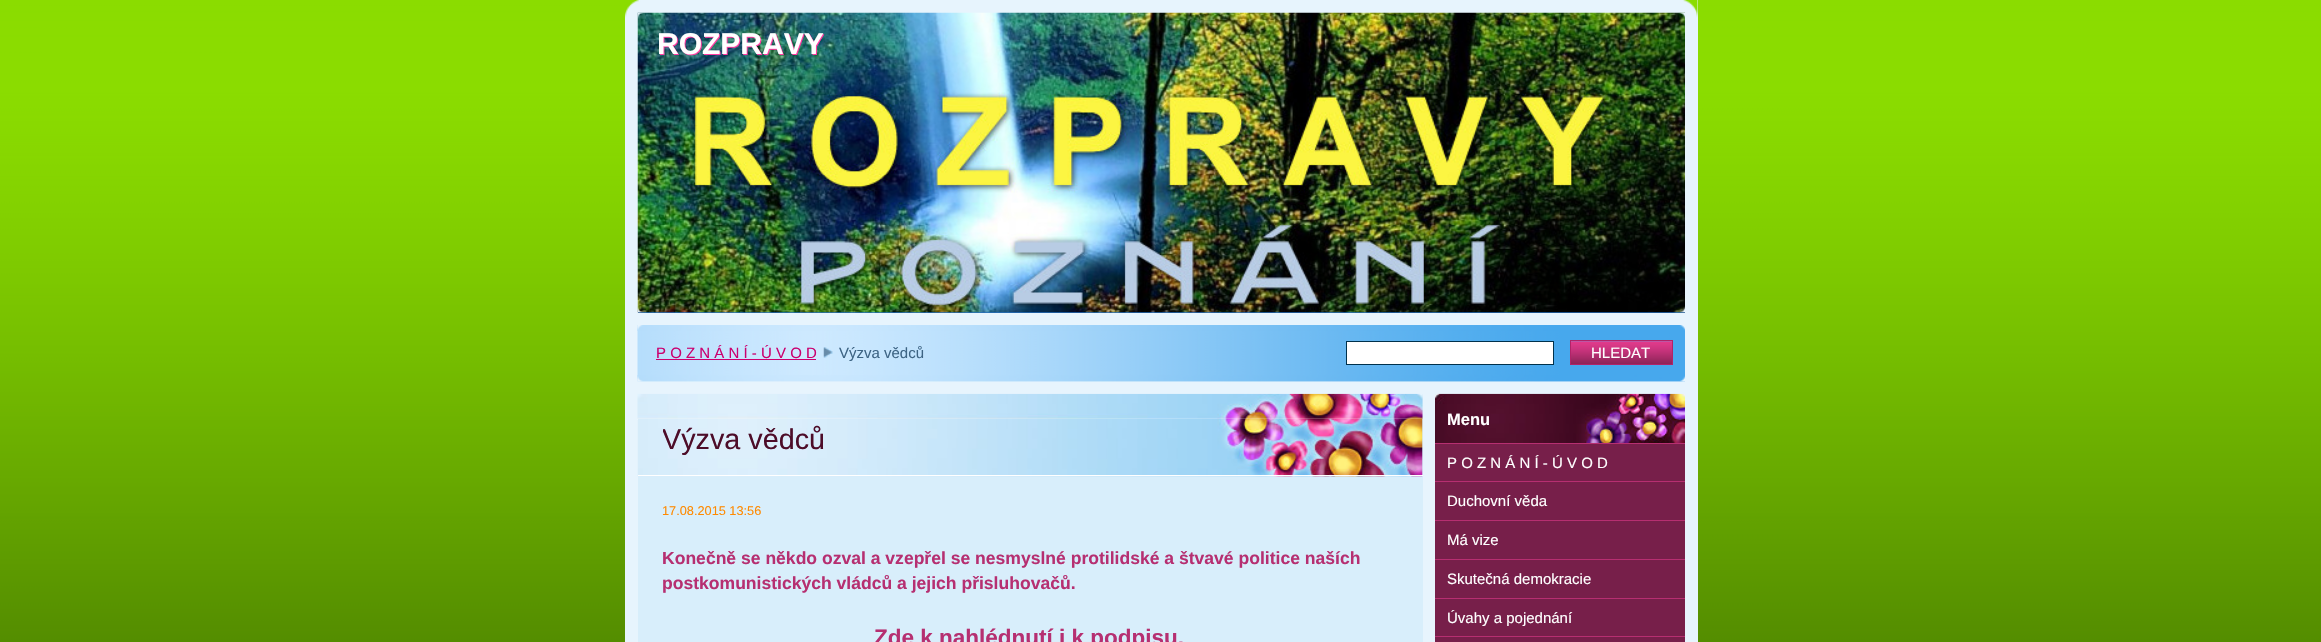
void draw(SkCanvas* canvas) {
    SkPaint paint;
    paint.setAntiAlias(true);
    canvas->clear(0xFFFFFFFF);
    canvas->drawImageRect(SkImages::DeferredFromEncodedData(SkData::MakeFromFileName("img1.png")), SkRect::MakeXYWH(0, 0, 2321, 642), SkSamplingOptions());
    paint.setColor(0xFFE7F4FD);
    canvas->drawRect(SkRect::MakeXYWH(625, 0, 1073, 642), paint);
    canvas->drawImageRect(SkImages::DeferredFromEncodedData(SkData::MakeFromFileName("img2.png")), SkRect::MakeXYWH(625, 0, 1073, 18), SkSamplingOptions());
    paint.setColor(0xFF266FBC);
    canvas->drawRect(SkRect::MakeXYWH(638, 312, 1047, 1), paint);
    canvas->drawImageRect(SkImages::DeferredFromEncodedData(SkData::MakeFromFileName("img3.png")), SkRect::MakeXYWH(637, 12, 1048, 301), SkSamplingOptions());
    canvas->drawImageRect(SkImages::DeferredFromEncodedData(SkData::MakeFromFileName("img4.png")), SkRect::MakeXYWH(637, 12, 1048, 301), SkSamplingOptions());
    SkFont font1(fontMgr->matchFamilyStyle("Liberation Sans", SkFontStyle::Bold()), 30);
    font1.setSubpixel(true);
    paint.setColor(0xFFFF3BA1);
    canvas->drawString("ROZPRAVY", 658, 55, font1, paint);
    paint.setColor(0xFFFFFFFF);
    canvas->drawString("ROZPRAVY", 657, 54, font1, paint);
    canvas->drawImageRect(SkImages::DeferredFromEncodedData(SkData::MakeFromFileName("img5.png")), SkRect::MakeXYWH(637, 325, 1048, 57), SkSamplingOptions());
    canvas->drawImageRect(SkImages::DeferredFromEncodedData(SkData::MakeFromFileName("img6.png")), SkRect::MakeXYWH(637, 375, 1048, 7), SkSamplingOptions());
    canvas->drawImageRect(SkImages::DeferredFromEncodedData(SkData::MakeFromFileName("img7.png")), SkRect::MakeXYWH(637, 325, 1048, 6), SkSamplingOptions());
    SkFont font2(fontMgr->matchFamilyStyle("Liberation Sans", SkFontStyle::Normal()), 15);
    font2.setSubpixel(true);
    paint.setColor(0xFFCB006F);
    canvas->drawString("P O Z N Á N Í - Ú V O D", 656, 358, font2, paint);
    canvas->drawRect(SkRect::MakeXYWH(656, 359, 160, 1), paint);
    canvas->drawImageRect(SkImages::DeferredFromEncodedData(SkData::MakeFromFileName("img8.png")), SkRect::MakeXYWH(823, 347, 10, 11), SkSamplingOptions());
    paint.setColor(0xFF3D6484);
    canvas->drawString("Výzva vědců", 839, 358, font2, paint);
    paint.setColor(0xFFFFFFFF);
    canvas->drawRect(SkRect::MakeXYWH(1346.5f, 341.5f, 207, 23), paint);
    paint.setStyle(SkPaint::kStroke_Style);
    paint.setStrokeWidth(1);
    paint.setColor(0xFF00314C);
    canvas->drawRect(SkRect::MakeXYWH(1346.5f, 341.5f, 207, 23), paint);
    canvas->drawImageRect(SkImages::DeferredFromEncodedData(SkData::MakeFromFileName("img9.png")), SkRect::MakeXYWH(1571, 341, 101, 23), SkSamplingOptions());
    paint.setColor(0xFFB12368);
    canvas->drawRect(SkRect::MakeXYWH(1570.5f, 340.5f, 102, 24), paint);
    paint.setStyle(SkPaint::kFill_Style);
    paint.setColor(0xFFFFFFFF);
    canvas->drawString("HLEDAT", 1591, 358, font2, paint);
    paint.setColor(0xFFD8EEFB);
    canvas->drawRect(SkRect::MakeXYWH(638, 394, 785, 248), paint);
    canvas->drawImageRect(SkImages::DeferredFromEncodedData(SkData::MakeFromFileName("img10.png")), SkRect::MakeXYWH(637, 393, 786, 27), SkSamplingOptions());
    paint.setColor(0xFFD4EBF9);
    canvas->drawRect(SkRect::MakeXYWH(1422, 419, 1, 56), paint);
    canvas->drawImageRect(SkImages::DeferredFromEncodedData(SkData::MakeFromFileName("img11.png")), SkRect::MakeXYWH(637, 418, 786, 59), SkSamplingOptions());
    paint.setColor(0xFFFFFFFF);
    canvas->drawRect(SkRect::MakeXYWH(638, 475, 785, 1), paint);
    canvas->save();
    canvas->clipRect(SkRect::MakeXYWH(663, 423, 562, 33));
    SkFont font3(fontMgr->matchFamilyStyle("Liberation Sans", SkFontStyle::Normal()), 28.75f);
    font3.setSubpixel(true);
    paint.setColor(0xFF4D0D29);
    canvas->drawString("Výzva vědců", 662, 449, font3, paint);
    canvas->restore();
    SkFont font4(fontMgr->matchFamilyStyle("Liberation Sans", SkFontStyle::Normal()), 12.75f);
    font4.setSubpixel(true);
    paint.setColor(0xFFFF8A00);
    canvas->drawString("17.08.2015 13:56", 662, 515, font4, paint);
    SkFont font5(fontMgr->matchFamilyStyle("Liberation Sans", SkFontStyle::Bold()), 17.55f);
    font5.setSubpixel(true);
    paint.setColor(0xFFB62F71);
    canvas->drawString("Konečně se někdo ozval a vzepřel se nesmyslné protilidské a štvavé politice naších", 662, 564, font5, paint);
    canvas->drawString("postkomunistických vládců a jejich přisluhovačů.", 662, 589, font5, paint);
    SkFont font6(fontMgr->matchFamilyStyle("Liberation Sans", SkFontStyle::Bold()), 22.5f);
    font6.setSubpixel(true);
    canvas->drawString("Zde k nahlédnutí i k podpisu.", 874, 645, font6, paint);
    canvas->drawImageRect(SkImages::DeferredFromEncodedData(SkData::MakeFromFileName("img12.png")), SkRect::MakeXYWH(1435, 393, 250, 50), SkSamplingOptions());
    SkFont font7(fontMgr->matchFamilyStyle("Liberation Sans", SkFontStyle::Bold()), 16.5f);
    font7.setSubpixel(true);
    paint.setColor(0xFFFFFFFF);
    canvas->drawString("Menu", 1447, 425, font7, paint);
    paint.setColor(0xFF771F4A);
    canvas->drawRect(SkRect::MakeXYWH(1435, 444, 250, 198), paint);
    paint.setColor(0xFFB62F71);
    canvas->drawRect(SkRect::MakeXYWH(1435, 443, 250, 1), paint);
    canvas->drawRect(SkRect::MakeXYWH(1435, 481, 250, 1), paint);
    paint.setColor(0xFFFFFFFF);
    canvas->drawString("P O Z N Á N Í - Ú V O D", 1447, 468, font2, paint);
    paint.setColor(0xFFB62F71);
    canvas->drawRect(SkRect::MakeXYWH(1435, 520, 250, 1), paint);
    paint.setColor(0xFFFFFFFF);
    canvas->drawString("Duchovní věda", 1447, 506, font2, paint);
    paint.setColor(0xFFB62F71);
    canvas->drawRect(SkRect::MakeXYWH(1435, 559, 250, 1), paint);
    paint.setColor(0xFFFFFFFF);
    canvas->drawString("Má vize", 1447, 545, font2, paint);
    paint.setColor(0xFFB62F71);
    canvas->drawRect(SkRect::MakeXYWH(1435, 598, 250, 1), paint);
    paint.setColor(0xFFFFFFFF);
    canvas->drawString("Skutečná demokracie", 1447, 584, font2, paint);
    paint.setColor(0xFFB62F71);
    canvas->drawRect(SkRect::MakeXYWH(1435, 636, 250, 1), paint);
    paint.setColor(0xFFFFFFFF);
    canvas->drawString("Úvahy a pojednání", 1447, 623, font2, paint);
}
